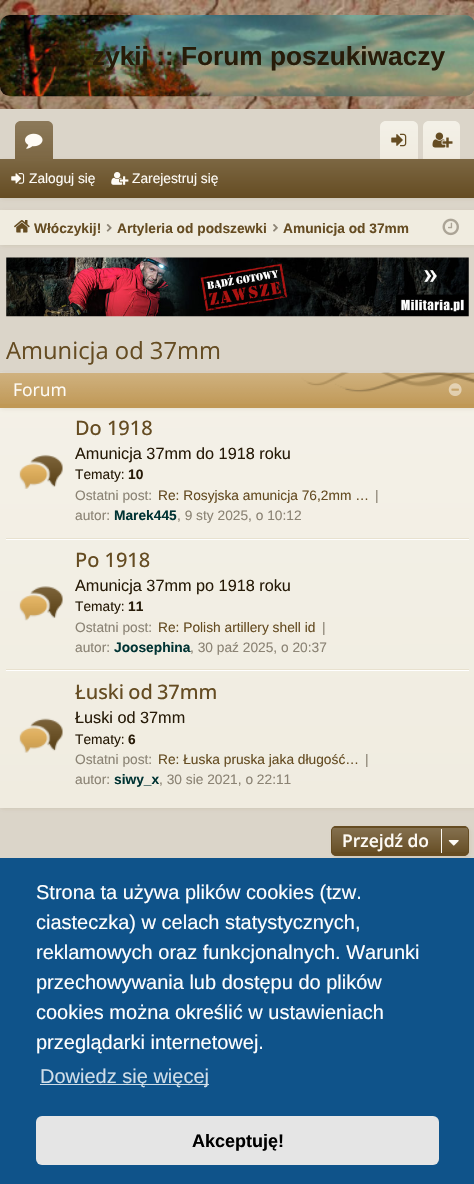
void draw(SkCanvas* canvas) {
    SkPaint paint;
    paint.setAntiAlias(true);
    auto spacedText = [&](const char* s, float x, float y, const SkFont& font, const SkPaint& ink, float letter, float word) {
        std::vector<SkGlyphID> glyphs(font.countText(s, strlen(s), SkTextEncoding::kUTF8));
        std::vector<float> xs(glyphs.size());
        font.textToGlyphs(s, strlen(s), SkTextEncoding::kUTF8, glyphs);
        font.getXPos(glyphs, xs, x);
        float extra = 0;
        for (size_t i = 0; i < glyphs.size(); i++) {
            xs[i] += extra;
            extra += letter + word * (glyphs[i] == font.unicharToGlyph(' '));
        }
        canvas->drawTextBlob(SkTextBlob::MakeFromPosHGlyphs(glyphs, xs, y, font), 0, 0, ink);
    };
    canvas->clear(0xFFFFFFFF);
    canvas->drawImageRect(SkImages::DeferredFromEncodedData(SkData::MakeFromFileName("img1.png")), SkRect::MakeXYWH(0, 0, 474, 109), SkSamplingOptions());
    canvas->drawImageRect(SkImages::DeferredFromEncodedData(SkData::MakeFromFileName("img2.png")), SkRect::MakeXYWH(0, 15, 474, 82), SkSamplingOptions());
    SkFont font1(fontMgr->matchFamilyStyle("Liberation Sans", SkFontStyle::Bold()), 26.25f);
    font1.setSubpixel(true);
    paint.setColor(0xFF271B08);
    canvas->drawString("zykij :: Forum poszukiwaczy", 92, 65, font1, paint);
    paint.setColor(0xFFDBD5C9);
    canvas->drawRect(SkRect::MakeXYWH(0, 109, 474, 749), paint);
    paint.setColor(0xFF654C22);
    canvas->drawPath(SkPathBuilder().moveTo(21, 121).lineTo(47, 121).cubicTo(50.5f, 121, 53, 123.5f, 53, 127).lineTo(53, 159).lineTo(15, 159).lineTo(15, 127).cubicTo(15, 123.5f, 17.5f, 121, 21, 121).close().detach(), paint);
    {
        const SkColor colors[] = {0x40FFFFFF, 0x26FFFFFF};
        const float stops[] = {0, 1};
        const SkPoint ends[] = {{34, 121}, {34, 159}};
        paint.setShader(SkGradientShader::MakeLinear(ends, colors, stops, 2, SkTileMode::kClamp));
        paint.setAlpha(255);
    }
    canvas->drawPath(SkPathBuilder().moveTo(21, 121).lineTo(47, 121).cubicTo(50.5f, 121, 53, 123.5f, 53, 127).lineTo(53, 159).lineTo(15, 159).lineTo(15, 127).cubicTo(15, 123.5f, 17.5f, 121, 21, 121).close().detach(), paint);
    canvas->drawImageRect(SkImages::DeferredFromEncodedData(SkData::MakeFromFileName("img3.png")), SkRect::MakeXYWH(25, 133, 18, 16), SkSamplingOptions());
    paint.setShader(nullptr);
    paint.setColor(0xFFF0ECE0);
    canvas->drawPath(SkPathBuilder().moveTo(386, 121).lineTo(412, 121).cubicTo(415.5f, 121, 418, 123.5f, 418, 127).lineTo(418, 159).lineTo(380, 159).lineTo(380, 127).cubicTo(380, 123.5f, 382.5f, 121, 386, 121).close().detach(), paint);
    {
        const SkColor colors[] = {0x40FFFFFF, 0x00FFFFFF};
        const float stops[] = {0, 1};
        const SkPoint ends[] = {{399, 121}, {399, 159}};
        paint.setShader(SkGradientShader::MakeLinear(ends, colors, stops, 2, SkTileMode::kClamp));
        paint.setAlpha(255);
    }
    canvas->drawPath(SkPathBuilder().moveTo(386, 121).lineTo(412, 121).cubicTo(415.5f, 121, 418, 123.5f, 418, 127).lineTo(418, 159).lineTo(380, 159).lineTo(380, 127).cubicTo(380, 123.5f, 382.5f, 121, 386, 121).close().detach(), paint);
    paint.setShader(nullptr);
    paint.setColor(0xFFF0ECE0);
    canvas->drawPath(SkPathBuilder().moveTo(429, 121).lineTo(454, 121).cubicTo(457.5f, 121, 460, 123.5f, 460, 127).lineTo(460, 159).lineTo(423, 159).lineTo(423, 127).cubicTo(423, 123.5f, 425.5f, 121, 429, 121).close().detach(), paint);
    {
        const SkColor colors[] = {0x40FFFFFF, 0x00FFFFFF};
        const float stops[] = {0, 1};
        const SkPoint ends[] = {{441, 121}, {441, 159}};
        paint.setShader(SkGradientShader::MakeLinear(ends, colors, stops, 2, SkTileMode::kClamp));
        paint.setAlpha(255);
    }
    canvas->drawPath(SkPathBuilder().moveTo(429, 121).lineTo(454, 121).cubicTo(457.5f, 121, 460, 123.5f, 460, 127).lineTo(460, 159).lineTo(423, 159).lineTo(423, 127).cubicTo(423, 123.5f, 425.5f, 121, 429, 121).close().detach(), paint);
    paint.setShader(nullptr);
    paint.setColor(0x1A654C22);
    paint.setMaskFilter(SkMaskFilter::MakeBlur(kNormal_SkBlurStyle, 2));
    canvas->drawRect(SkRect::MakeXYWH(1, 160, 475, 39), paint);
    paint.setMaskFilter(nullptr);
    {
        const SkColor colors[] = {0xFF7C6743, 0xFF654C22};
        const float stops[] = {0, 1};
        const SkPoint ends[] = {{238, 159}, {238, 198}};
        paint.setShader(SkGradientShader::MakeLinear(ends, colors, stops, 2, SkTileMode::kClamp));
        paint.setAlpha(255);
    }
    canvas->drawRect(SkRect::MakeXYWH(0, 159, 474, 39), paint);
    paint.setShader(nullptr);
    paint.setColor(0xFF654C22);
    canvas->drawPath(SkPathBuilder().moveTo(17.5f, 158).lineTo(50.5f, 158).cubicTo(52, 158, 53, 159, 53, 160.5f).lineTo(53, 161).lineTo(15, 161).lineTo(15, 160.5f).cubicTo(15, 159, 16, 158, 17.5f, 158).close().detach(), paint);
    paint.setColor(0x26FFFFFF);
    canvas->drawPath(SkPathBuilder().moveTo(17.5f, 158).lineTo(50.5f, 158).cubicTo(52, 158, 53, 159, 53, 160.5f).lineTo(53, 161).lineTo(15, 161).lineTo(15, 160.5f).cubicTo(15, 159, 16, 158, 17.5f, 158).close().detach(), paint);
    canvas->drawImageRect(SkImages::DeferredFromEncodedData(SkData::MakeFromFileName("img4.png")), SkRect::MakeXYWH(391, 133, 16, 14), SkSamplingOptions());
    canvas->drawImageRect(SkImages::DeferredFromEncodedData(SkData::MakeFromFileName("img5.png")), SkRect::MakeXYWH(432, 132, 21, 16), SkSamplingOptions());
    canvas->drawImageRect(SkImages::DeferredFromEncodedData(SkData::MakeFromFileName("img6.png")), SkRect::MakeXYWH(11, 173, 14, 11), SkSamplingOptions());
    SkFont font2(fontMgr->matchFamilyStyle("Liberation Sans", SkFontStyle::Normal()), 13.75f);
    font2.setSubpixel(true);
    paint.setColor(0xFFFEFBF5);
    canvas->drawString("Zaloguj się", 29, 183, font2, paint);
    canvas->drawImageRect(SkImages::DeferredFromEncodedData(SkData::MakeFromFileName("img7.png")), SkRect::MakeXYWH(111, 172, 18, 13), SkSamplingOptions());
    canvas->drawString("Zarejestruj się", 132, 183, font2, paint);
    paint.setColor(0x1A654C22);
    paint.setMaskFilter(SkMaskFilter::MakeBlur(kNormal_SkBlurStyle, 2));
    canvas->drawRect(SkRect::MakeXYWH(1, 211, 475, 35), paint);
    paint.setMaskFilter(nullptr);
    paint.setColor(0xFFF0ECE0);
    canvas->drawRect(SkRect::MakeXYWH(0, 210, 474, 35), paint);
    canvas->drawImageRect(SkImages::DeferredFromEncodedData(SkData::MakeFromFileName("img8.png")), SkRect::MakeXYWH(14, 220, 16, 13), SkSamplingOptions());
    SkFont font3(fontMgr->matchFamilyStyle("Liberation Sans", SkFontStyle::Bold()), 13.75f);
    font3.setSubpixel(true);
    paint.setColor(0xFF654C22);
    canvas->drawString("Włóczykij!", 34, 233, font3, paint);
    canvas->drawImageRect(SkImages::DeferredFromEncodedData(SkData::MakeFromFileName("img9.png")), SkRect::MakeXYWH(106, 224, 6, 8), SkSamplingOptions());
    canvas->drawString("Artyleria od podszewki", 117, 233, font3, paint);
    canvas->drawImageRect(SkImages::DeferredFromEncodedData(SkData::MakeFromFileName("img10.png")), SkRect::MakeXYWH(273, 224, 5, 8), SkSamplingOptions());
    canvas->drawString("Amunicja od 37mm", 283, 233, font3, paint);
    canvas->drawImageRect(SkImages::DeferredFromEncodedData(SkData::MakeFromFileName("img11.png")), SkRect::MakeXYWH(442, 218, 17, 18), SkSamplingOptions());
    canvas->drawImageRect(SkImages::DeferredFromEncodedData(SkData::MakeFromFileName("img12.png")), SkRect::MakeXYWH(6, 257, 463, 60), SkSamplingOptions());
    SkFont font4(fontMgr->matchFamilyStyle("Open Sans", SkFontStyle::Normal()), 23.75f);
    font4.setSubpixel(true);
    canvas->drawString("Amunicja od 37mm", 6, 359, font4, paint);
    paint.setColor(0x1A654C22);
    paint.setMaskFilter(SkMaskFilter::MakeBlur(kNormal_SkBlurStyle, 2));
    canvas->drawRect(SkRect::MakeXYWH(1, 374, 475, 435), paint);
    paint.setMaskFilter(nullptr);
    {
        const SkColor colors[] = {0xFFF4F1E8, 0xFFF0ECE0};
        const float stops[] = {0, 1};
        const SkPoint ends[] = {{237, 373}, {238, 808}};
        paint.setShader(SkGradientShader::MakeLinear(ends, colors, stops, 2, SkTileMode::kClamp));
        paint.setAlpha(255);
    }
    canvas->drawRect(SkRect::MakeXYWH(0, 408, 474, 400), paint);
    paint.setShader(nullptr);
    paint.setColor(0x1A654C22);
    paint.setMaskFilter(SkMaskFilter::MakeBlur(kNormal_SkBlurStyle, 2));
    canvas->drawRect(SkRect::MakeXYWH(1, 374, 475, 35), paint);
    paint.setMaskFilter(nullptr);
    paint.setColor(0xFFC09855);
    canvas->drawRect(SkRect::MakeXYWH(0, 373, 474, 35), paint);
    canvas->drawImageRect(SkImages::DeferredFromEncodedData(SkData::MakeFromFileName("img13.png")), SkRect::MakeXYWH(0, 372, 474, 32), SkSamplingOptions());
    SkFont font5(fontMgr->matchFamilyStyle("Open Sans", SkFontStyle::Normal()), 17.5f);
    font5.setSubpixel(true);
    paint.setColor(0xFFFEFBF5);
    canvas->drawString("Forum", 13, 396, font5, paint);
    canvas->drawImageRect(SkImages::DeferredFromEncodedData(SkData::MakeFromFileName("img14.png")), SkRect::MakeXYWH(448, 383, 14, 13), SkSamplingOptions());
    paint.setColor(0xFFE8E1CF);
    canvas->drawRect(SkRect::MakeXYWH(6, 538, 463, 1), paint);
    canvas->drawImageRect(SkImages::DeferredFromEncodedData(SkData::MakeFromFileName("img15.png")), SkRect::MakeXYWH(19, 454, 44, 35), SkSamplingOptions());
    SkFont font6(fontMgr->matchFamilyStyle("Open Sans", SkFontStyle(500, SkFontStyle::kNormal_Width, SkFontStyle::kUpright_Slant)), 20);
    font6.setSubpixel(true);
    paint.setColor(0xFF654C22);
    canvas->drawString("Do 1918", 75, 435, font6, paint);
    SkFont font7(fontMgr->matchFamilyStyle("Liberation Sans", SkFontStyle::Normal()), 16.25f);
    font7.setSubpixel(true);
    paint.setColor(0xFF271B08);
    canvas->drawString("Amunicja 37mm do 1918 roku", 75, 459, font7, paint);
    canvas->drawString("Tematy:", 75, 479, font2, paint);
    canvas->drawString("10", 128, 479, font3, paint);
    paint.setColor(0xFF8B8374);
    canvas->drawString("Ostatni post:", 75, 500, font2, paint);
    paint.setColor(0xFF654C22);
    canvas->drawString("Re: Rosyjska amunicja 76,2mm …", 158, 500, font2, paint);
    paint.setColor(0xFF8B8374);
    canvas->drawString("|", 375, 500, font2, paint);
    canvas->drawString("autor:", 75, 520, font2, paint);
    paint.setColor(0xFF003333);
    canvas->drawString("Marek445", 114, 520, font3, paint);
    paint.setColor(0xFF8B8374);
    canvas->drawString(", 9 sty 2025, o 10:12", 177, 520, font2, paint);
    paint.setColor(0xFFFFFFFF);
    canvas->drawRect(SkRect::MakeXYWH(6, 539, 463, 1), paint);
    paint.setColor(0xFFE8E1CF);
    canvas->drawRect(SkRect::MakeXYWH(6, 669, 463, 1), paint);
    canvas->drawImageRect(SkImages::DeferredFromEncodedData(SkData::MakeFromFileName("img16.png")), SkRect::MakeXYWH(19, 586, 44, 35), SkSamplingOptions());
    paint.setColor(0xFF654C22);
    canvas->drawString("Po 1918", 75, 567, font6, paint);
    paint.setColor(0xFF271B08);
    canvas->drawString("Amunicja 37mm po 1918 roku", 75, 591, font7, paint);
    canvas->drawString("Tematy:", 75, 611, font2, paint);
    canvas->drawString("11", 128, 611, font3, paint);
    paint.setColor(0xFF8B8374);
    canvas->drawString("Ostatni post:", 75, 632, font2, paint);
    paint.setColor(0xFF654C22);
    canvas->drawString("Re: Polish artillery shell id", 158, 632, font2, paint);
    paint.setColor(0xFF8B8374);
    canvas->drawString("|", 322, 632, font2, paint);
    canvas->drawString("autor:", 75, 652, font2, paint);
    paint.setColor(0xFF003333);
    canvas->drawString("Joosephina", 114, 652, font3, paint);
    paint.setColor(0xFF8B8374);
    canvas->drawString(", 30 paź 2025, o 20:37", 190, 652, font2, paint);
    paint.setColor(0xFFFFFFFF);
    canvas->drawRect(SkRect::MakeXYWH(6, 670, 463, 1), paint);
    canvas->drawImageRect(SkImages::DeferredFromEncodedData(SkData::MakeFromFileName("img17.png")), SkRect::MakeXYWH(19, 718, 44, 35), SkSamplingOptions());
    paint.setColor(0xFF654C22);
    spacedText("Łuski od 37mm", 75, 699, font6, paint, 0, -1);
    paint.setColor(0xFF271B08);
    canvas->drawString("Łuski od 37mm", 75, 723, font7, paint);
    canvas->drawString("Tematy:", 75, 744, font2, paint);
    canvas->drawString("6", 128, 744, font3, paint);
    paint.setColor(0xFF8B8374);
    canvas->drawString("Ostatni post:", 75, 764, font2, paint);
    paint.setColor(0xFF654C22);
    canvas->drawString("Re: Łuska pruska jaka długość…", 158, 764, font2, paint);
    paint.setColor(0xFF8B8374);
    canvas->drawString("|", 365, 764, font2, paint);
    canvas->drawString("autor:", 75, 784, font2, paint);
    paint.setColor(0xFF003333);
    canvas->drawString("siwy_x", 114, 784, font3, paint);
    paint.setColor(0xFF8B8374);
    canvas->drawString(", 30 sie 2021, o 22:11", 159, 784, font2, paint);
    paint.setColor(0x1A654C22);
    paint.setMaskFilter(SkMaskFilter::MakeBlur(kNormal_SkBlurStyle, 2));
    canvas->drawRoundRect(SkRect::MakeXYWH(333, 828, 137, 30), 5, 5, paint);
    paint.setMaskFilter(nullptr);
    paint.setColor(0xFF654C22);
    canvas->drawRoundRect(SkRect::MakeXYWH(331, 826, 138, 30), 5, 5, paint);
    {
        const SkColor colors[] = {0x33FFFFFF, 0x00FFFFFF};
        const float stops[] = {0, 1};
        const SkPoint ends[] = {{400, 828}, {400, 855}};
        paint.setShader(SkGradientShader::MakeLinear(ends, colors, stops, 2, SkTileMode::kClamp));
        paint.setAlpha(255);
    }
    canvas->drawRect(SkRect::MakeXYWH(331, 828, 138, 24), paint);
    paint.setStyle(SkPaint::kStroke_Style);
    paint.setStrokeWidth(1);
    paint.setShader(nullptr);
    paint.setColor(0xFF654C22);
    canvas->drawRoundRect(SkRect::MakeXYWH(331.5f, 826.5f, 137, 29), 4.5f, 4.5f, paint);
    SkFont font8(fontMgr->matchFamilyStyle("Open Sans", SkFontStyle(600, SkFontStyle::kNormal_Width, SkFontStyle::kUpright_Slant)), 17.5f);
    font8.setSubpixel(true);
    paint.setStyle(SkPaint::kFill_Style);
    paint.setColor(0xFFFEFBF5);
    canvas->drawString("Przejdź do", 342, 847, font8, paint);
    canvas->drawRect(SkRect::MakeXYWH(441, 829, 1, 24), paint);
    canvas->drawImageRect(SkImages::DeferredFromEncodedData(SkData::MakeFromFileName("img18.png")), SkRect::MakeXYWH(448, 840, 11, 6), SkSamplingOptions());
    paint.setColor(0xFF0F538A);
    canvas->drawRect(SkRect::MakeXYWH(0, 858, 474, 326), paint);
    SkFont font9(fontMgr->matchFamilyStyle("Liberation Sans", SkFontStyle::Normal()), 20);
    font9.setSubpixel(true);
    paint.setColor(0xFFFFFFFF);
    canvas->drawString("Strona ta używa plików cookies (tzw.", 36, 899, font9, paint);
    canvas->drawString("ciasteczka) w celach statystycznych,", 36, 929, font9, paint);
    canvas->drawString("reklamowych oraz funkcjonalnych. Warunki", 36, 959, font9, paint);
    canvas->drawString("przechowywania lub dostępu do plików", 36, 989, font9, paint);
    canvas->drawString("cookies można określić w ustawieniach", 36, 1019, font9, paint);
    canvas->drawString("przeglądarki internetowej.", 36, 1049, font9, paint);
    paint.setColor(0xFFCFDDE8);
    canvas->drawRect(SkRect::MakeXYWH(40, 1084, 169, 1), paint);
    canvas->drawString("Dowiedz się więcej", 40, 1083, font9, paint);
    paint.setColor(0xFFE5E5E5);
    canvas->drawRoundRect(SkRect::MakeXYWH(36, 1116, 403, 49), 6, 6, paint);
    SkFont font10(fontMgr->matchFamilyStyle("Liberation Sans", SkFontStyle::Bold()), 18);
    font10.setSubpixel(true);
    paint.setColor(0xFF000000);
    canvas->drawString("Akceptuję!", 192, 1147, font10, paint);
}
